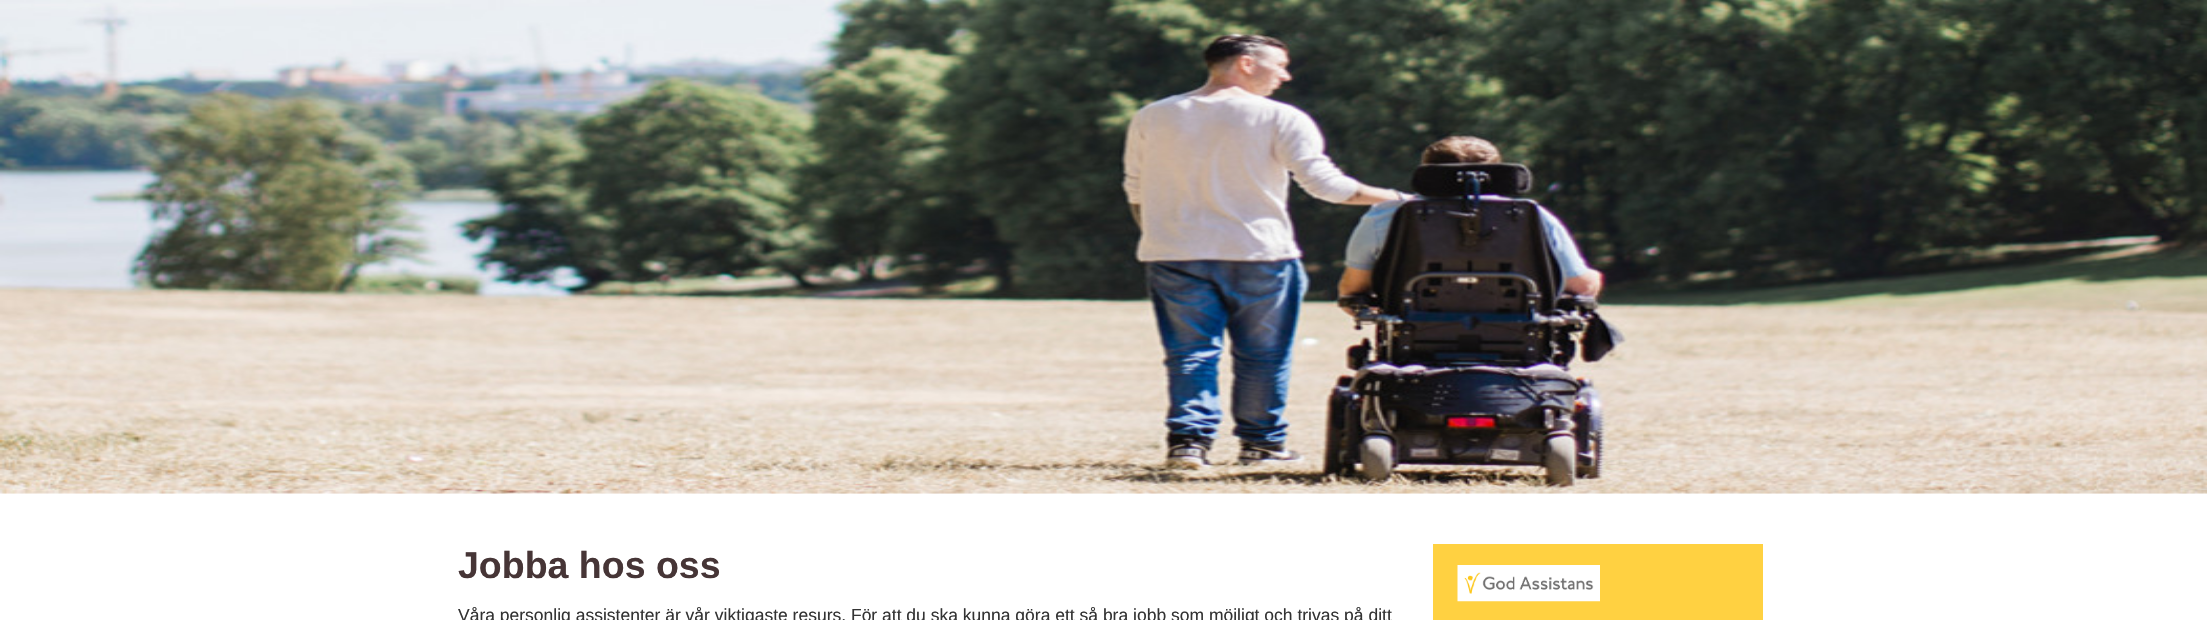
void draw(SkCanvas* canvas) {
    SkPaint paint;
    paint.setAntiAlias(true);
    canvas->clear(0xFFFFFFFF);
    canvas->drawImageRect(SkImages::DeferredFromEncodedData(SkData::MakeFromFileName("img1.png")), SkRect::MakeXYWH(0, 0, 2207, 494), SkSamplingOptions());
    SkFont font1(fontMgr->matchFamilyStyle("Liberation Sans", SkFontStyle::Bold()), 37.5f);
    font1.setSubpixel(true);
    paint.setColor(0xFF463536);
    canvas->drawString("Jobba hos oss", 458, 578, font1, paint);
    SkFont font2(fontMgr->matchFamilyStyle("Liberation Sans", SkFontStyle::Normal()), 17.5f);
    font2.setSubpixel(true);
    paint.setColor(0xFF333333);
    canvas->drawString("Våra personlig assistenter är vår viktigaste resurs. För att du ska kunna göra ett så bra jobb som möjligt och trivas på ditt", 458, 621, font2, paint);
    paint.setColor(0xFFFFD141);
    canvas->drawRect(SkRect::MakeXYWH(1433, 544, 330, 76), paint);
    canvas->drawImageRect(SkImages::DeferredFromEncodedData(SkData::MakeFromFileName("img2.png")), SkRect::MakeXYWH(1457, 565, 143, 37), SkSamplingOptions());
}
